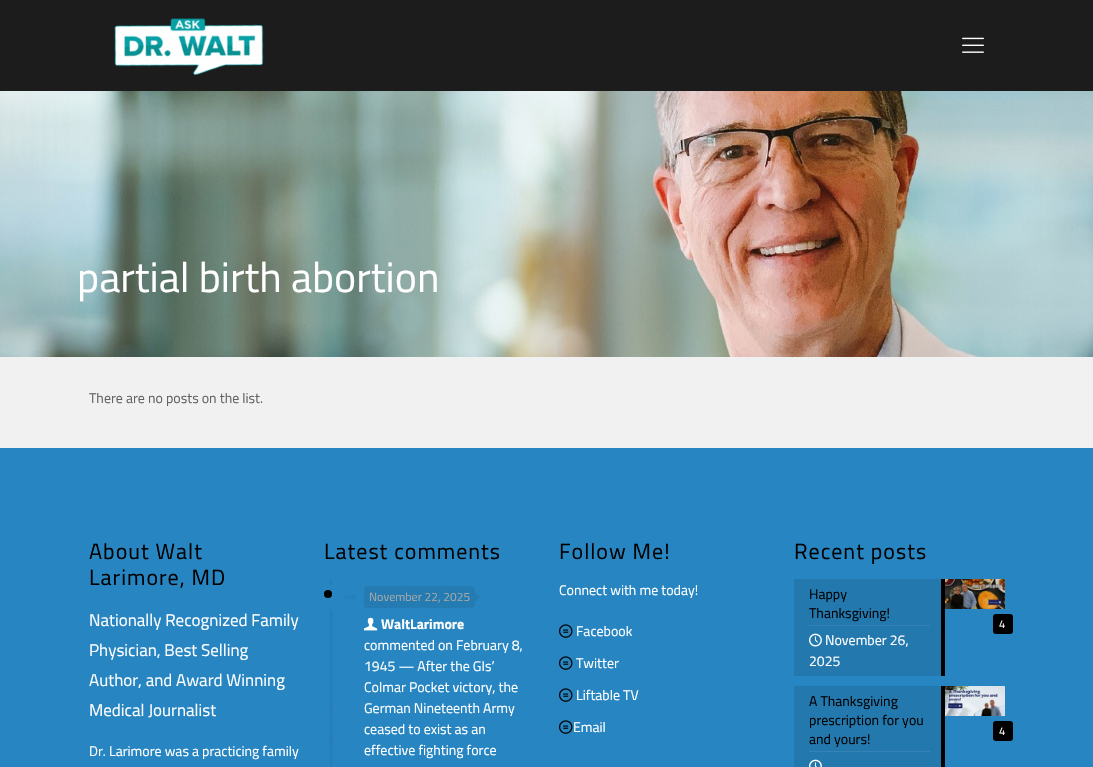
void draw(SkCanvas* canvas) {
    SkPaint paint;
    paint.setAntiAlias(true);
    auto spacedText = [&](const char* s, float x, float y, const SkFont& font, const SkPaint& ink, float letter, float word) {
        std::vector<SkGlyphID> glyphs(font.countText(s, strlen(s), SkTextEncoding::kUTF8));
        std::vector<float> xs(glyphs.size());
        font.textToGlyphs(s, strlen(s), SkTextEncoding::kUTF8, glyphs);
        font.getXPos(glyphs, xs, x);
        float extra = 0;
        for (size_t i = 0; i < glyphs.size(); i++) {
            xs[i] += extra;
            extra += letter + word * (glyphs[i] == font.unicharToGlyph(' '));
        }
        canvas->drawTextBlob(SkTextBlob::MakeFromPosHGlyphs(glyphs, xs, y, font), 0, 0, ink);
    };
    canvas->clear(0xFFF1F1F1);
    canvas->drawImageRect(SkImages::DeferredFromEncodedData(SkData::MakeFromFileName("img1.png")), SkRect::MakeXYWH(0, 91, 1093, 266), SkSamplingOptions());
    paint.setColor(0xFF1C1C1C);
    canvas->drawRect(SkRect::MakeXYWH(0, 0, 1093, 91), paint);
    canvas->drawImageRect(SkImages::DeferredFromEncodedData(SkData::MakeFromFileName("img2.png")), SkRect::MakeXYWH(114, 18, 150, 58), SkSamplingOptions());
    canvas->drawImageRect(SkImages::DeferredFromEncodedData(SkData::MakeFromFileName("img3.png")), SkRect::MakeXYWH(962, 37, 22, 16), SkSamplingOptions());
    SkFont font1(fontMgr->matchFamilyStyle("Titillium Web", SkFontStyle::Normal()), 42);
    font1.setSubpixel(true);
    paint.setColor(0xFFFFFFFF);
    canvas->drawString("partial birth abortion", 77, 292, font1, paint);
    SkFont font2(fontMgr->matchFamilyStyle("Titillium Web", SkFontStyle::Normal()), 14);
    font2.setSubpixel(true);
    paint.setColor(0xFF626262);
    canvas->drawString("There are no posts on the list.", 89, 403, font2, paint);
    paint.setColor(0xFF2785C1);
    canvas->drawRect(SkRect::MakeXYWH(0, 448, 1093, 319), paint);
    SkFont font3(fontMgr->matchFamilyStyle("Titillium Web", SkFontStyle::Normal()), 22);
    font3.setSubpixel(true);
    paint.setColor(0xFF000000);
    spacedText("About Walt", 89, 559, font3, paint, 1, 0);
    spacedText("Larimore, MD", 89, 585, font3, paint, 1, 0);
    SkFont font4(fontMgr->matchFamilyStyle("Titillium Web", SkFontStyle::Normal()), 17);
    font4.setSubpixel(true);
    paint.setColor(0xFFFFFFFF);
    canvas->drawString("Nationally Recognized Family", 89, 626, font4, paint);
    canvas->drawString("Physician, Best Selling", 89, 656, font4, paint);
    canvas->drawString("Author, and Award Winning", 89, 686, font4, paint);
    canvas->drawString("Medical Journalist", 89, 716, font4, paint);
    canvas->drawString("Dr. Larimore was a practicing family", 89, 756, font2, paint);
    paint.setColor(0xFF000000);
    spacedText("Latest comments", 324, 559, font3, paint, 1, 0);
    canvas->drawImageRect(SkImages::DeferredFromEncodedData(SkData::MakeFromFileName("img4.png")), SkRect::MakeXYWH(329, 579, 27, 188), SkSamplingOptions());
    canvas->drawCircle(328, 594, 4, paint);
    paint.setColor(0xFF247CB3);
    canvas->drawRoundRect(SkRect::MakeXYWH(364, 586, 111, 22), 4, 4, paint);
    canvas->drawImageRect(SkImages::DeferredFromEncodedData(SkData::MakeFromFileName("img5.png")), SkRect::MakeXYWH(364, 586, 111, 22), SkSamplingOptions());
    SkFont font5(fontMgr->matchFamilyStyle("Titillium Web", SkFontStyle::Normal()), 12);
    font5.setSubpixel(true);
    paint.setColor(0xFFA8A8A8);
    canvas->drawString("November 22, 2025", 369, 601, font5, paint);
    paint.setColor(0xFF247CB3);
    canvas->drawPath(SkPathBuilder().moveTo(475, 602).lineTo(475, 592).lineTo(480, 597).close().detach(), paint);
    canvas->drawImageRect(SkImages::DeferredFromEncodedData(SkData::MakeFromFileName("img6.png")), SkRect::MakeXYWH(364, 617, 14, 14), SkSamplingOptions());
    SkFont font6(fontMgr->matchFamilyStyle("Titillium Web", SkFontStyle::Bold()), 14);
    font6.setSubpixel(true);
    paint.setColor(0xFFFFFFFF);
    canvas->drawString("WaltLarimore", 381, 629, font6, paint);
    canvas->drawString("commented on February 8,", 364, 650, font2, paint);
    canvas->drawString("1945 — After the GIs’", 364, 671, font2, paint);
    canvas->drawString("Colmar Pocket victory, the", 364, 692, font2, paint);
    canvas->drawString("German Nineteenth Army", 364, 713, font2, paint);
    canvas->drawString("ceased to exist as an", 364, 734, font2, paint);
    canvas->drawString("effective fighting force", 364, 755, font2, paint);
    paint.setColor(0xFF000000);
    spacedText("Follow Me!", 559, 559, font3, paint, 1, 0);
    paint.setColor(0xFFFFFFFF);
    canvas->drawString("Connect with me today!", 559, 595, font2, paint);
    canvas->drawImageRect(SkImages::DeferredFromEncodedData(SkData::MakeFromFileName("img7.png")), SkRect::MakeXYWH(559, 624, 14, 14), SkSamplingOptions());
    canvas->drawString("Facebook", 576, 636, font2, paint);
    canvas->drawImageRect(SkImages::DeferredFromEncodedData(SkData::MakeFromFileName("img7.png")), SkRect::MakeXYWH(559, 656, 14, 14), SkSamplingOptions());
    canvas->drawString("Twitter", 576, 668, font2, paint);
    canvas->drawImageRect(SkImages::DeferredFromEncodedData(SkData::MakeFromFileName("img7.png")), SkRect::MakeXYWH(559, 688, 14, 14), SkSamplingOptions());
    canvas->drawString("Liftable TV", 576, 700, font2, paint);
    canvas->drawImageRect(SkImages::DeferredFromEncodedData(SkData::MakeFromFileName("img7.png")), SkRect::MakeXYWH(559, 720, 14, 14), SkSamplingOptions());
    canvas->drawString("Email", 573, 732, font2, paint);
    paint.setColor(0xFF000000);
    spacedText("Recent posts", 794, 559, font3, paint, 1, 0);
    paint.setColor(0xFF2378AE);
    canvas->drawRect(SkRect::MakeXYWH(794, 579, 147, 97), paint);
    paint.setColor(0xFF3583B4);
    canvas->drawRect(SkRect::MakeXYWH(809, 625, 121, 1), paint);
    paint.setColor(0xFF000000);
    canvas->drawString("Happy", 809, 599, font2, paint);
    canvas->drawString("Thanksgiving!", 809, 618, font2, paint);
    canvas->drawRect(SkRect::MakeXYWH(941, 579, 4, 97), paint);
    canvas->drawImageRect(SkImages::DeferredFromEncodedData(SkData::MakeFromFileName("img8.png")), SkRect::MakeXYWH(809, 633, 13, 14), SkSamplingOptions());
    paint.setColor(0xFFFFFFFF);
    canvas->drawString("November 26,", 825, 645, font2, paint);
    canvas->drawString("2025", 809, 666, font2, paint);
    canvas->drawImageRect(SkImages::DeferredFromEncodedData(SkData::MakeFromFileName("img9.png")), SkRect::MakeXYWH(945, 579, 60, 30), SkSamplingOptions());
    paint.setColor(0xFF000000);
    canvas->drawRoundRect(SkRect::MakeXYWH(993, 614, 20, 20), 3, 3, paint);
    SkFont font7(fontMgr->matchFamilyStyle("Titillium Web", SkFontStyle::Normal()), 11);
    font7.setSubpixel(true);
    paint.setColor(0xFFFFFFFF);
    canvas->drawString("4", 999, 628, font7, paint);
    paint.setColor(0xFF2378AE);
    canvas->drawRect(SkRect::MakeXYWH(794, 686, 147, 81), paint);
    paint.setColor(0xFF3583B4);
    canvas->drawRect(SkRect::MakeXYWH(809, 751, 121, 1), paint);
    paint.setColor(0xFF000000);
    canvas->drawString("A Thanksgiving", 809, 706, font2, paint);
    canvas->drawString("prescription for you", 809, 725, font2, paint);
    canvas->drawString("and yours!", 809, 744, font2, paint);
    canvas->drawRect(SkRect::MakeXYWH(941, 686, 4, 81), paint);
    canvas->drawImageRect(SkImages::DeferredFromEncodedData(SkData::MakeFromFileName("img10.png")), SkRect::MakeXYWH(809, 759, 13, 8), SkSamplingOptions());
    canvas->drawImageRect(SkImages::DeferredFromEncodedData(SkData::MakeFromFileName("img11.png")), SkRect::MakeXYWH(945, 686, 60, 30), SkSamplingOptions());
    canvas->drawRoundRect(SkRect::MakeXYWH(993, 721, 20, 20), 3, 3, paint);
    paint.setColor(0xFFFFFFFF);
    canvas->drawString("4", 999, 735, font7, paint);
}
